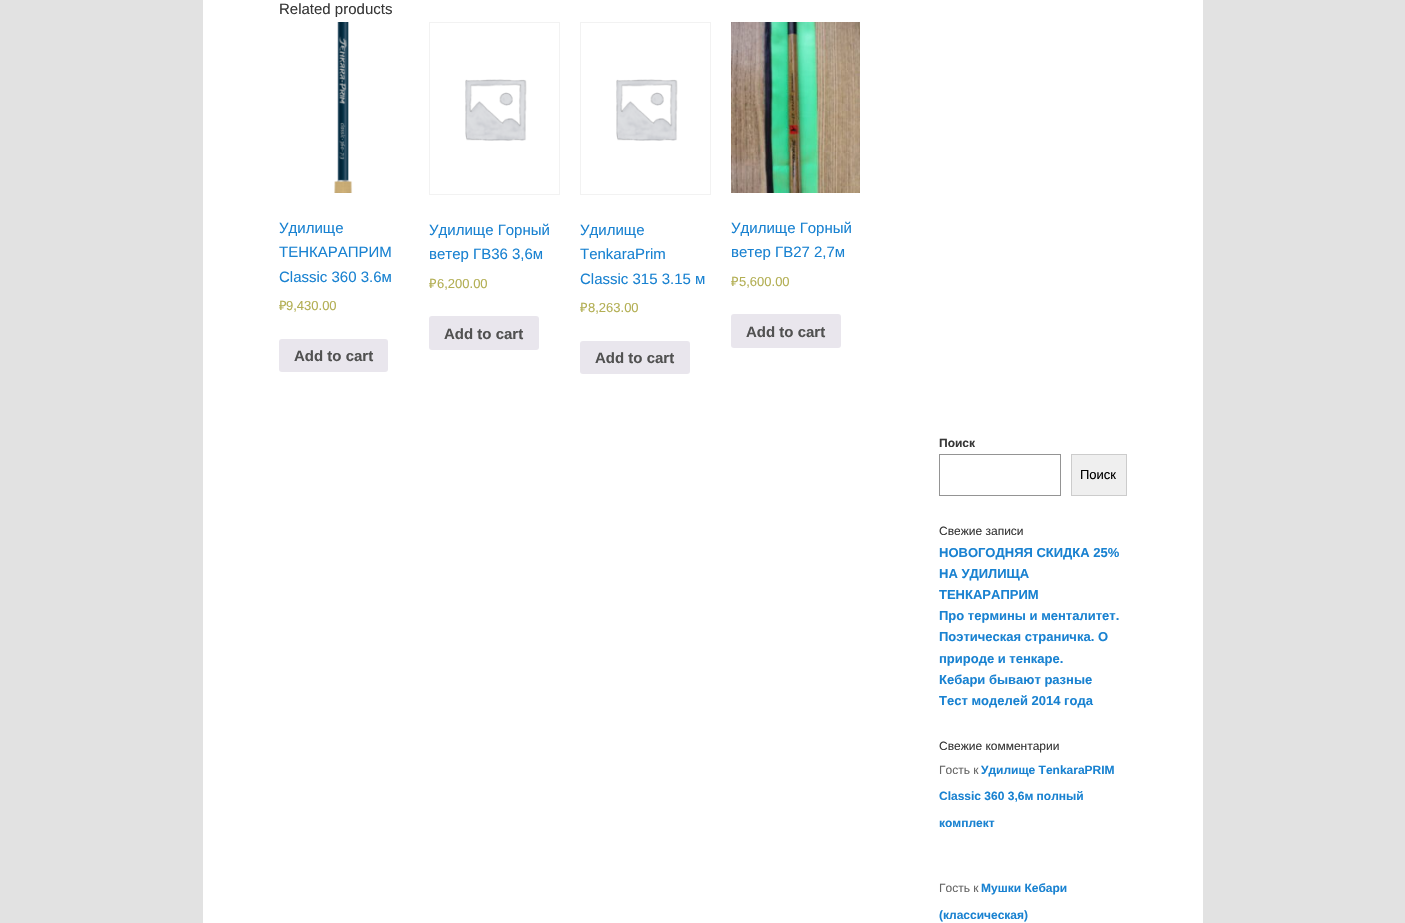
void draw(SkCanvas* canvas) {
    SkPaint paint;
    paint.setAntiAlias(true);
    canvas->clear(0xFFE2E2E2);
    paint.setColor(0xFFFFFFFF);
    canvas->drawRect(SkRect::MakeXYWH(203, 0, 1000, 923), paint);
    SkFont font1(fontMgr->matchFamilyStyle("Liberation Sans", SkFontStyle::Normal()), 15);
    font1.setSubpixel(true);
    paint.setColor(0xFF373737);
    canvas->drawString("Related products", 279, 14, font1, paint);
    canvas->drawImageRect(SkImages::DeferredFromEncodedData(SkData::MakeFromFileName("img1.png")), SkRect::MakeXYWH(334, 22, 19, 171), SkSamplingOptions());
    paint.setColor(0xFF1982D1);
    canvas->drawString("Удилище", 279, 233, font1, paint);
    canvas->drawString("ТЕНКАРАПРИМ", 279, 257, font1, paint);
    canvas->drawString("Classic 360 3.6м", 279, 282, font1, paint);
    SkFont font2(fontMgr->matchFamilyStyle("Noto Sans", SkFontStyle::Normal()), 13);
    font2.setSubpixel(true);
    paint.setColor(0xFFB3AF54);
    canvas->drawString("₽", 279, 310, font2, paint);
    SkFont font3(fontMgr->matchFamilyStyle("Liberation Sans", SkFontStyle::Normal()), 13);
    font3.setSubpixel(true);
    canvas->drawString("9,430.00", 286, 310, font3, paint);
    paint.setColor(0xFFE9E6ED);
    canvas->drawRoundRect(SkRect::MakeXYWH(279, 339, 109, 33), 3, 3, paint);
    SkFont font4(fontMgr->matchFamilyStyle("Liberation Sans", SkFontStyle::Bold()), 15);
    font4.setSubpixel(true);
    paint.setColor(0xFF515151);
    canvas->drawString("Add to cart", 294, 361, font4, paint);
    paint.setStyle(SkPaint::kStroke_Style);
    paint.setStrokeWidth(1);
    paint.setColor(0xFFF2F2F2);
    canvas->drawRect(SkRect::MakeXYWH(429.5f, 22.5f, 130, 172), paint);
    canvas->drawImageRect(SkImages::DeferredFromEncodedData(SkData::MakeFromFileName("img2.png")), SkRect::MakeXYWH(465, 79, 62, 62), SkSamplingOptions());
    paint.setStyle(SkPaint::kFill_Style);
    paint.setColor(0xFF1982D1);
    canvas->drawString("Удилище Горный", 429, 235, font1, paint);
    canvas->drawString("ветер ГВ36 3,6м", 429, 259, font1, paint);
    paint.setColor(0xFFB3AF54);
    canvas->drawString("₽", 429, 288, font2, paint);
    canvas->drawString("6,200.00", 437, 288, font3, paint);
    paint.setColor(0xFFE9E6ED);
    canvas->drawRoundRect(SkRect::MakeXYWH(429, 316, 110, 34), 3, 3, paint);
    paint.setColor(0xFF515151);
    canvas->drawString("Add to cart", 444, 339, font4, paint);
    paint.setStyle(SkPaint::kStroke_Style);
    paint.setColor(0xFFF2F2F2);
    canvas->drawRect(SkRect::MakeXYWH(580.5f, 22.5f, 130, 172), paint);
    canvas->drawImageRect(SkImages::DeferredFromEncodedData(SkData::MakeFromFileName("img2.png")), SkRect::MakeXYWH(616, 79, 62, 62), SkSamplingOptions());
    paint.setStyle(SkPaint::kFill_Style);
    paint.setColor(0xFF1982D1);
    canvas->drawString("Удилище", 580, 235, font1, paint);
    canvas->drawString("TenkaraPrim", 580, 259, font1, paint);
    canvas->drawString("Classic 315 3.15 м", 580, 284, font1, paint);
    paint.setColor(0xFFB3AF54);
    canvas->drawString("₽", 580, 312, font2, paint);
    canvas->drawString("8,263.00", 588, 312, font3, paint);
    paint.setColor(0xFFE9E6ED);
    canvas->drawRoundRect(SkRect::MakeXYWH(580, 341, 110, 33), 3, 3, paint);
    paint.setColor(0xFF515151);
    canvas->drawString("Add to cart", 595, 363, font4, paint);
    canvas->drawImageRect(SkImages::DeferredFromEncodedData(SkData::MakeFromFileName("img3.png")), SkRect::MakeXYWH(731, 22, 129, 171), SkSamplingOptions());
    paint.setColor(0xFF1982D1);
    canvas->drawString("Удилище Горный", 731, 233, font1, paint);
    canvas->drawString("ветер ГВ27 2,7м", 731, 257, font1, paint);
    paint.setColor(0xFFB3AF54);
    canvas->drawString("₽", 731, 286, font2, paint);
    canvas->drawString("5,600.00", 739, 286, font3, paint);
    paint.setColor(0xFFE9E6ED);
    canvas->drawRoundRect(SkRect::MakeXYWH(731, 314, 110, 34), 3, 3, paint);
    paint.setColor(0xFF515151);
    canvas->drawString("Add to cart", 746, 337, font4, paint);
    SkFont font5(fontMgr->matchFamilyStyle("Liberation Sans", SkFontStyle::Bold()), 12);
    font5.setSubpixel(true);
    paint.setColor(0xFF373737);
    canvas->drawString("Поиск", 939, 447, font5, paint);
    paint.setStyle(SkPaint::kStroke_Style);
    paint.setColor(0xFF949494);
    canvas->drawRect(SkRect::MakeXYWH(939.5f, 454.5f, 121, 41), paint);
    paint.setStyle(SkPaint::kFill_Style);
    paint.setColor(0xFFEFEFEF);
    canvas->drawRect(SkRect::MakeXYWH(1071.5f, 454.5f, 55, 41), paint);
    paint.setStyle(SkPaint::kStroke_Style);
    paint.setColor(0xFFCCCCCC);
    canvas->drawRect(SkRect::MakeXYWH(1071.5f, 454.5f, 55, 41), paint);
    paint.setStyle(SkPaint::kFill_Style);
    paint.setColor(0xFF000000);
    canvas->drawString("Поиск", 1080, 479, font3, paint);
    SkFont font6(fontMgr->matchFamilyStyle("Liberation Sans", SkFontStyle::Normal()), 12);
    font6.setSubpixel(true);
    paint.setColor(0xFF373737);
    canvas->drawString("Свежие записи", 939, 535, font6, paint);
    SkFont font7(fontMgr->matchFamilyStyle("Liberation Sans", SkFontStyle::Bold()), 13);
    font7.setSubpixel(true);
    paint.setColor(0xFF1982D1);
    canvas->drawString("НОВОГОДНЯЯ СКИДКА 25%", 939, 557, font7, paint);
    canvas->drawString("НА УДИЛИЩА", 939, 578, font7, paint);
    canvas->drawString("ТЕНКАРАПРИМ", 939, 599, font7, paint);
    canvas->drawString("Про термины и менталитет.", 939, 620, font7, paint);
    canvas->drawString("Поэтическая страничка. О", 939, 641, font7, paint);
    canvas->drawString("природе и тенкаре.", 939, 663, font7, paint);
    canvas->drawString("Кебари бывают разные", 939, 684, font7, paint);
    canvas->drawString("Тест моделей 2014 года", 939, 705, font7, paint);
    paint.setColor(0xFF373737);
    canvas->drawString("Свежие комментарии", 939, 750, font6, paint);
    paint.setColor(0xFF666666);
    canvas->drawString("Гость к", 939, 774, font6, paint);
    paint.setColor(0xFF1982D1);
    canvas->drawString("Удилище TenkaraPRIM", 981, 774, font5, paint);
    canvas->drawString("Classic 360 3,6м полный", 939, 800, font5, paint);
    canvas->drawString("комплект", 939, 827, font5, paint);
    paint.setColor(0xFF666666);
    canvas->drawString("Гость к", 939, 892, font6, paint);
    paint.setColor(0xFF1982D1);
    canvas->drawString("Мушки Кебари", 981, 892, font5, paint);
    canvas->drawString("(классическая)", 939, 919, font5, paint);
}
